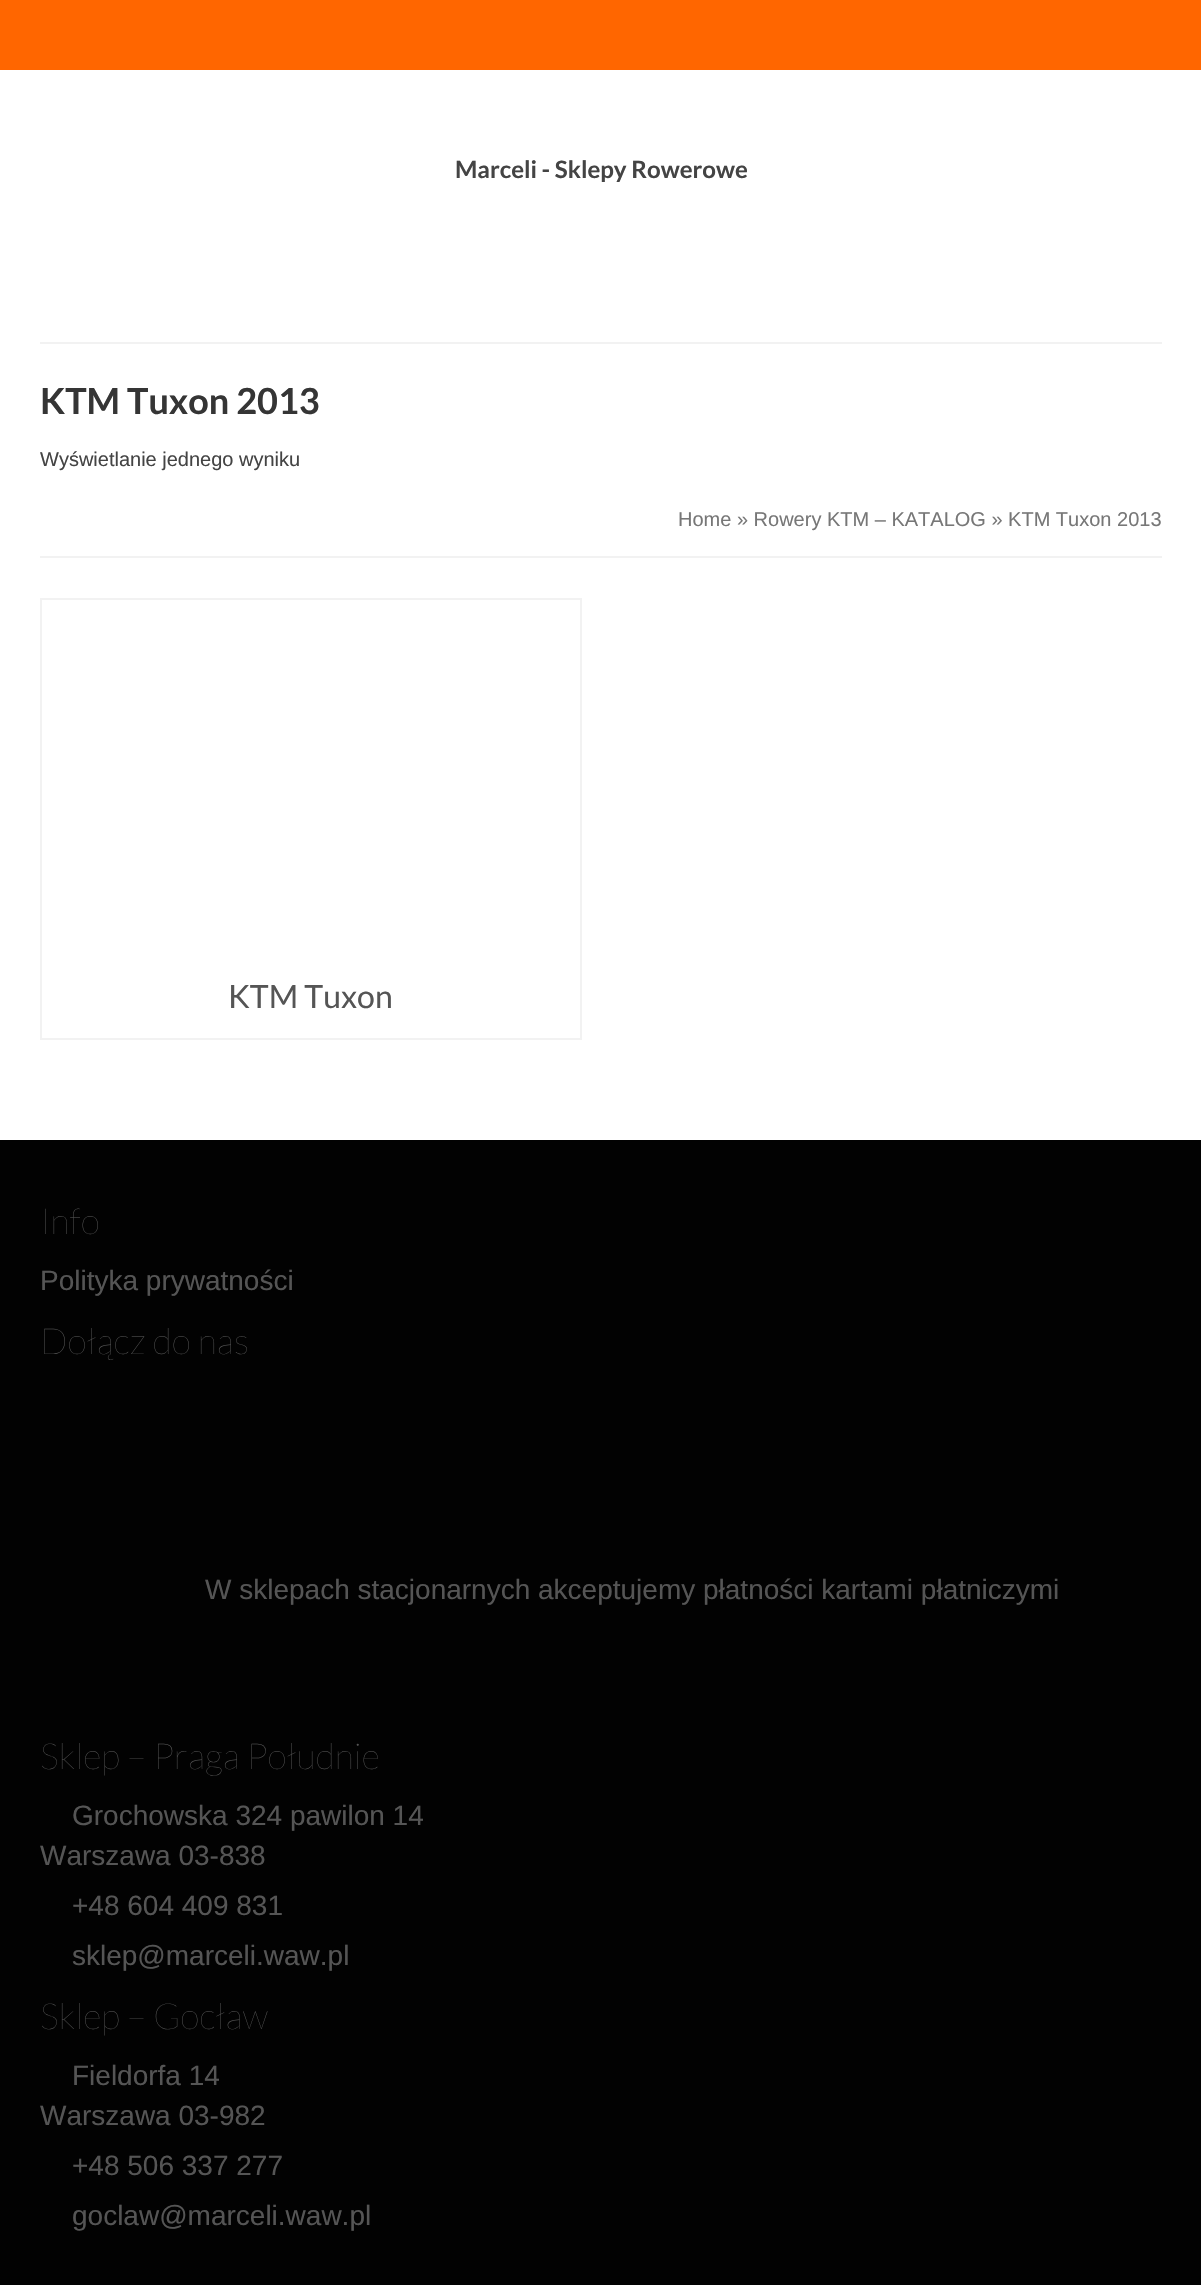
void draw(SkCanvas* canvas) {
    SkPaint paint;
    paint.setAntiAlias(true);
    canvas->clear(0xFFFFFFFF);
    paint.setColor(0xFFFF6600);
    canvas->drawRect(SkRect::MakeXYWH(0, 0, 1201, 70), paint);
    SkFont font1(fontMgr->matchFamilyStyle("Lato", SkFontStyle::Bold()), 24);
    font1.setSubpixel(true);
    paint.setColor(0xFF444444);
    canvas->drawString("Marceli - Sklepy Rowerowe", 455, 178, font1, paint);
    paint.setColor(0xFFF2F2F2);
    canvas->drawRect(SkRect::MakeXYWH(40, 342, 1122, 2), paint);
    canvas->drawRect(SkRect::MakeXYWH(40, 556, 1122, 2), paint);
    SkFont font2(fontMgr->matchFamilyStyle("Lato", SkFontStyle::Bold()), 36);
    font2.setSubpixel(true);
    paint.setColor(0xFF353535);
    canvas->drawString("KTM Tuxon 2013", 40, 414, font2, paint);
    SkFont font3(fontMgr->matchFamilyStyle("Liberation Sans", SkFontStyle::Normal()), 20);
    font3.setSubpixel(true);
    paint.setColor(0xFF444444);
    canvas->drawString("Wyświetlanie jednego wyniku", 40, 466, font3, paint);
    paint.setColor(0xFF777777);
    canvas->drawString("Home » Rowery KTM – KATALOG » KTM Tuxon 2013", 678, 526, font3, paint);
    paint.setStyle(SkPaint::kStroke_Style);
    paint.setStrokeWidth(2);
    paint.setColor(0xFFF2F2F2);
    canvas->drawRect(SkRect::MakeXYWH(41, 599, 540, 440), paint);
    SkFont font4(fontMgr->matchFamilyStyle("Lato", SkFontStyle::Normal()), 32);
    font4.setSubpixel(true);
    paint.setStyle(SkPaint::kFill_Style);
    paint.setColor(0xFF555555);
    canvas->drawString("KTM Tuxon", 228, 1008, font4, paint);
    paint.setColor(0xFF020202);
    canvas->drawRect(SkRect::MakeXYWH(0, 1140, 1201, 1145), paint);
    SkFont font5(fontMgr->matchFamilyStyle("Lato", SkFontStyle(100, SkFontStyle::kNormal_Width, SkFontStyle::kUpright_Slant)), 36);
    font5.setSubpixel(true);
    paint.setColor(0xFF555555);
    canvas->drawString("Info", 40, 1234, font5, paint);
    SkFont font6(fontMgr->matchFamilyStyle("Liberation Sans", SkFontStyle::Normal()), 28);
    font6.setSubpixel(true);
    canvas->drawString("Polityka prywatności", 40, 1290, font6, paint);
    canvas->drawString("Dołącz do nas", 40, 1354, font5, paint);
    canvas->drawString("W sklepach stacjonarnych akceptujemy płatności kartami płatniczymi", 205, 1599, font6, paint);
    canvas->drawString("Sklep – Praga Południe", 40, 1769, font5, paint);
    canvas->drawString("Grochowska 324 pawilon 14", 72, 1825, font6, paint);
    canvas->drawString("Warszawa 03-838", 40, 1865, font6, paint);
    canvas->drawString("+48 604 409 831", 72, 1915, font6, paint);
    canvas->drawString("sklep@marceli.waw.pl", 72, 1965, font6, paint);
    canvas->drawString("Sklep – Gocław", 40, 2029, font5, paint);
    canvas->drawString("Fieldorfa 14", 72, 2085, font6, paint);
    canvas->drawString("Warszawa 03-982", 40, 2125, font6, paint);
    canvas->drawString("+48 506 337 277", 72, 2175, font6, paint);
    canvas->drawString("goclaw@marceli.waw.pl", 72, 2225, font6, paint);
}
